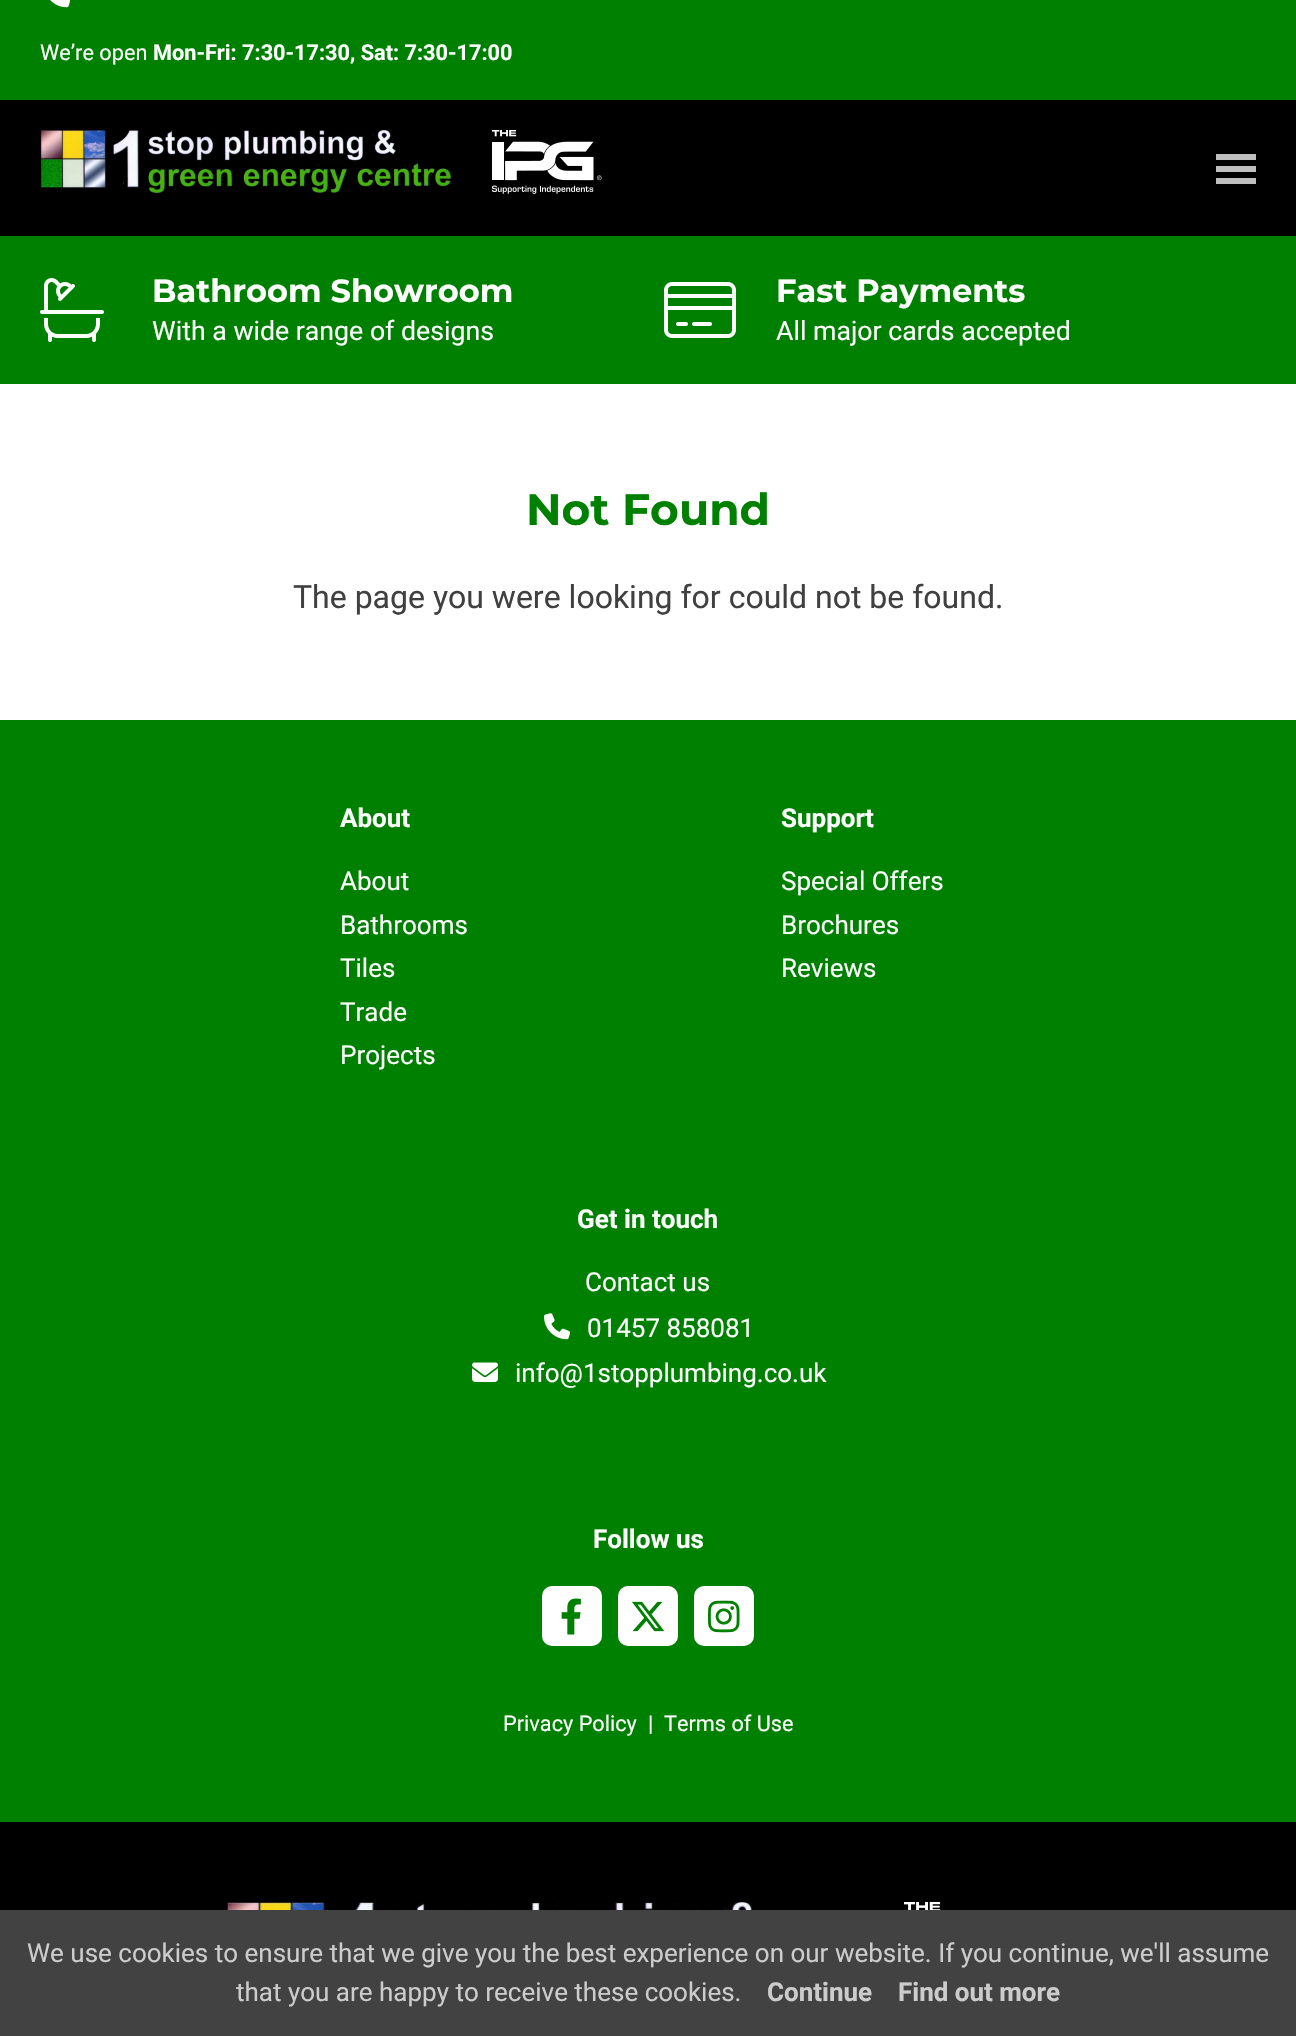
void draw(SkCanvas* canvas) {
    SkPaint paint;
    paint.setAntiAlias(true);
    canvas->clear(0xFFFFFFFF);
    paint.setColor(0xFF000000);
    canvas->drawRect(SkRect::MakeXYWH(0, 100, 1296, 136), paint);
    paint.setColor(0xFF008000);
    canvas->drawRect(SkRect::MakeXYWH(0, 0, 1296, 100), paint);
    canvas->drawImageRect(SkImages::DeferredFromEncodedData(SkData::MakeFromFileName("img1.png")), SkRect::MakeXYWH(50, 0, 20, 8), SkSamplingOptions());
    SkFont font1(fontMgr->matchFamilyStyle("Roboto", SkFontStyle::Normal()), 21.7f);
    font1.setSubpixel(true);
    paint.setColor(0xFFFFFFFF);
    canvas->drawString("We’re open", 40, 60, font1, paint);
    SkFont font2(fontMgr->matchFamilyStyle("Roboto", SkFontStyle::Bold()), 21.7f);
    font2.setSubpixel(true);
    canvas->drawString("Mon-Fri: 7:30-17:30, Sat: 7:30-17:00", 153, 60, font2, paint);
    canvas->drawImageRect(SkImages::DeferredFromEncodedData(SkData::MakeFromFileName("img2.png")), SkRect::MakeXYWH(40, 130, 412, 64), SkSamplingOptions());
    canvas->drawImageRect(SkImages::DeferredFromEncodedData(SkData::MakeFromFileName("img3.png")), SkRect::MakeXYWH(492, 130, 110, 64), SkSamplingOptions());
    paint.setColor(0xFFBFBFBF);
    canvas->drawRect(SkRect::MakeXYWH(1216, 166, 40, 6), paint);
    canvas->drawRect(SkRect::MakeXYWH(1216, 154, 40, 6), paint);
    canvas->drawRect(SkRect::MakeXYWH(1216, 178, 40, 6), paint);
    paint.setColor(0xFF008000);
    canvas->drawRect(SkRect::MakeXYWH(0, 236, 1296, 148), paint);
    canvas->drawImageRect(SkImages::DeferredFromEncodedData(SkData::MakeFromFileName("img4.png")), SkRect::MakeXYWH(40, 278, 64, 64), SkSamplingOptions());
    SkFont font3(fontMgr->matchFamilyStyle("Montserrat", SkFontStyle::Bold()), 32);
    font3.setSubpixel(true);
    paint.setColor(0xFFFFFFFF);
    canvas->drawString("Bathroom Showroom", 152, 302, font3, paint);
    SkFont font4(fontMgr->matchFamilyStyle("Roboto", SkFontStyle::Normal()), 26.7f);
    font4.setSubpixel(true);
    canvas->drawString("With a wide range of designs", 152, 340, font4, paint);
    canvas->drawImageRect(SkImages::DeferredFromEncodedData(SkData::MakeFromFileName("img5.png")), SkRect::MakeXYWH(664, 282, 72, 56), SkSamplingOptions());
    canvas->drawString("Fast Payments", 776, 302, font3, paint);
    canvas->drawString("All major cards accepted", 776, 340, font4, paint);
    SkFont font5(fontMgr->matchFamilyStyle("Montserrat", SkFontStyle::Bold()), 44);
    font5.setSubpixel(true);
    paint.setColor(0xFF008000);
    canvas->drawString("Not Found", 526, 525, font5, paint);
    SkFont font6(fontMgr->matchFamilyStyle("Roboto", SkFontStyle::Normal()), 32);
    font6.setSubpixel(true);
    paint.setColor(0xFF404040);
    canvas->drawString("The page you were looking for could not be found.", 293, 608, font6, paint);
    paint.setColor(0xFF008000);
    canvas->drawRect(SkRect::MakeXYWH(0, 720, 1296, 1102), paint);
    SkFont font7(fontMgr->matchFamilyStyle("Roboto", SkFontStyle::Bold()), 26);
    font7.setSubpixel(true);
    paint.setColor(0xFFFFFFFF);
    canvas->drawString("About", 340, 827, font7, paint);
    SkFont font8(fontMgr->matchFamilyStyle("Roboto", SkFontStyle::Normal()), 26);
    font8.setSubpixel(true);
    canvas->drawString("About", 340, 890, font8, paint);
    canvas->drawString("Bathrooms", 340, 934, font8, paint);
    canvas->drawString("Tiles", 340, 977, font8, paint);
    canvas->drawString("Trade", 340, 1021, font8, paint);
    canvas->drawString("Projects", 340, 1064, font8, paint);
    canvas->drawString("Support", 781, 827, font7, paint);
    canvas->drawString("Special Offers", 781, 890, font8, paint);
    canvas->drawString("Brochures", 781, 934, font8, paint);
    canvas->drawString("Reviews", 781, 977, font8, paint);
    canvas->drawString("Get in touch", 577, 1228, font7, paint);
    canvas->drawString("Contact us", 585, 1291, font8, paint);
    canvas->drawImageRect(SkImages::DeferredFromEncodedData(SkData::MakeFromFileName("img6.png")), SkRect::MakeXYWH(544, 1313, 26, 27), SkSamplingOptions());
    canvas->drawString("01457 858081", 587, 1337, font8, paint);
    canvas->drawImageRect(SkImages::DeferredFromEncodedData(SkData::MakeFromFileName("img7.png")), SkRect::MakeXYWH(472, 1362, 26, 20), SkSamplingOptions());
    canvas->drawString("info@1stopplumbing.co.uk", 515, 1382, font8, paint);
    canvas->drawString("Follow us", 593, 1548, font7, paint);
    canvas->drawRoundRect(SkRect::MakeXYWH(542, 1586, 60, 60), 10, 10, paint);
    canvas->drawImageRect(SkImages::DeferredFromEncodedData(SkData::MakeFromFileName("img8.png")), SkRect::MakeXYWH(561, 1598, 20, 37), SkSamplingOptions());
    canvas->drawRoundRect(SkRect::MakeXYWH(618, 1586, 60, 60), 10, 10, paint);
    canvas->drawImageRect(SkImages::DeferredFromEncodedData(SkData::MakeFromFileName("img9.png")), SkRect::MakeXYWH(632, 1601, 33, 31), SkSamplingOptions());
    canvas->drawRoundRect(SkRect::MakeXYWH(694, 1586, 60, 60), 10, 10, paint);
    canvas->drawImageRect(SkImages::DeferredFromEncodedData(SkData::MakeFromFileName("img10.png")), SkRect::MakeXYWH(708, 1600, 32, 33), SkSamplingOptions());
    canvas->drawString("Privacy Policy", 503, 1731, font1, paint);
    canvas->drawString("|", 648, 1731, font1, paint);
    canvas->drawString("Terms of Use", 664, 1731, font1, paint);
    paint.setColor(0xFF000000);
    canvas->drawRect(SkRect::MakeXYWH(0, 1822, 1296, 88), paint);
    canvas->drawImageRect(SkImages::DeferredFromEncodedData(SkData::MakeFromFileName("img11.png")), SkRect::MakeXYWH(226, 1902, 617, 8), SkSamplingOptions());
    canvas->drawImageRect(SkImages::DeferredFromEncodedData(SkData::MakeFromFileName("img12.png")), SkRect::MakeXYWH(904, 1902, 37, 8), SkSamplingOptions());
    paint.setColor(0xFF424242);
    canvas->drawRect(SkRect::MakeXYWH(0, 1910, 1296, 126), paint);
    paint.setColor(0xFFCCCCCC);
    canvas->drawString("We use cookies to ensure that we give you the best experience on our website. If you continue, we'll assume", 27, 1962, font8, paint);
    canvas->drawString("that you are happy to receive these cookies.", 236, 2001, font8, paint);
    canvas->drawString("Continue", 767, 2001, font7, paint);
    canvas->drawString("Find out more", 898, 2001, font7, paint);
}
